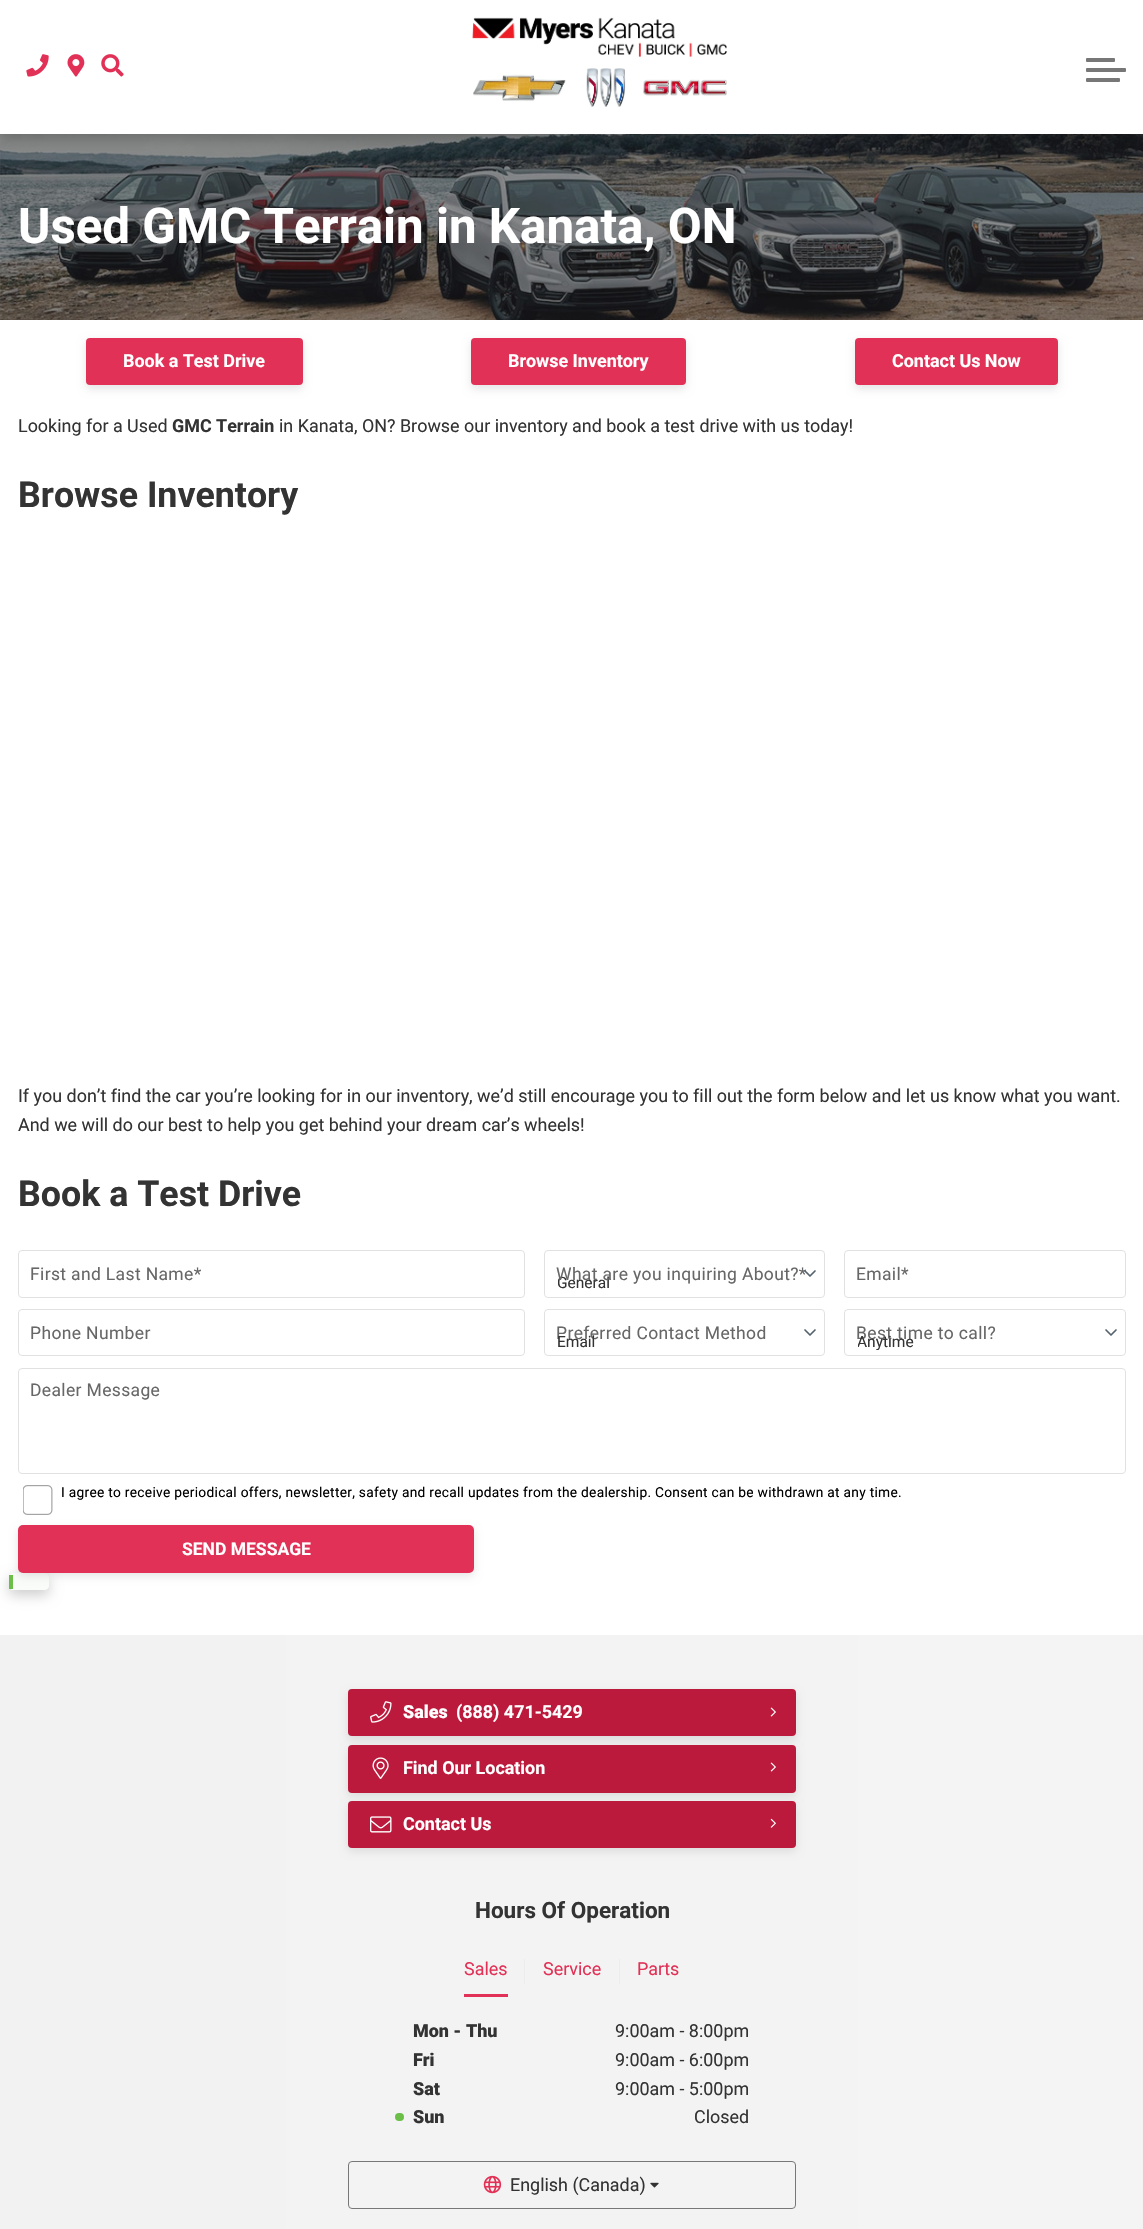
void draw(SkCanvas* canvas) {
    SkPaint paint;
    paint.setAntiAlias(true);
    auto spacedText = [&](const char* s, float x, float y, const SkFont& font, const SkPaint& ink, float letter, float word) {
        std::vector<SkGlyphID> glyphs(font.countText(s, strlen(s), SkTextEncoding::kUTF8));
        std::vector<float> xs(glyphs.size());
        font.textToGlyphs(s, strlen(s), SkTextEncoding::kUTF8, glyphs);
        font.getXPos(glyphs, xs, x);
        float extra = 0;
        for (size_t i = 0; i < glyphs.size(); i++) {
            xs[i] += extra;
            extra += letter + word * (glyphs[i] == font.unicharToGlyph(' '));
        }
        canvas->drawTextBlob(SkTextBlob::MakeFromPosHGlyphs(glyphs, xs, y, font), 0, 0, ink);
    };
    canvas->clear(0xFFFFFFFF);
    canvas->drawImageRect(SkImages::DeferredFromEncodedData(SkData::MakeFromFileName("img5.png")), SkRect::MakeXYWH(0, 134, 1143, 186), SkSamplingOptions());
    paint.setColor(0x33000000);
    paint.setMaskFilter(SkMaskFilter::MakeBlur(kNormal_SkBlurStyle, 6.5f));
    canvas->drawRect(SkRect::MakeXYWH(0, 5, 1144, 134), paint);
    paint.setMaskFilter(nullptr);
    paint.setColor(0xFFFFFFFF);
    canvas->drawRect(SkRect::MakeXYWH(0, 0, 1143, 134), paint);
    canvas->drawImageRect(SkImages::DeferredFromEncodedData(SkData::MakeFromFileName("img1.png")), SkRect::MakeXYWH(26, 54, 23, 23), SkSamplingOptions());
    canvas->drawImageRect(SkImages::DeferredFromEncodedData(SkData::MakeFromFileName("img2.png")), SkRect::MakeXYWH(67, 54, 18, 23), SkSamplingOptions());
    canvas->drawImageRect(SkImages::DeferredFromEncodedData(SkData::MakeFromFileName("img3.png")), SkRect::MakeXYWH(101, 54, 23, 23), SkSamplingOptions());
    canvas->drawImageRect(SkImages::DeferredFromEncodedData(SkData::MakeFromFileName("img4.png")), SkRect::MakeXYWH(472, 17, 255, 90), SkSamplingOptions());
    paint.setColor(0xFF777777);
    canvas->drawRoundRect(SkRect::MakeXYWH(1086, 68, 40, 4), 1, 1, paint);
    canvas->drawRoundRect(SkRect::MakeXYWH(1086, 58, 29, 4), 1, 1, paint);
    canvas->drawRoundRect(SkRect::MakeXYWH(1086, 78, 34, 4), 1, 1, paint);
    SkFont font1(fontMgr->matchFamilyStyle("Roboto", SkFontStyle::Bold()), 49.25f);
    font1.setSubpixel(true);
    paint.setColor(0xFFFFFFFF);
    canvas->drawString("Used GMC Terrain in Kanata, ON", 18, 243, font1, paint);
    paint.setColor(0x1A000000);
    paint.setMaskFilter(SkMaskFilter::MakeBlur(kNormal_SkBlurStyle, 4.5f));
    canvas->drawRoundRect(SkRect::MakeXYWH(86, 341, 217, 48), 4, 4, paint);
    paint.setMaskFilter(nullptr);
    paint.setColor(0xFFE23156);
    canvas->drawRoundRect(SkRect::MakeXYWH(86, 338, 217, 47), 4, 4, paint);
    SkFont font2(fontMgr->matchFamilyStyle("Roboto", SkFontStyle::Bold()), 17.92f);
    font2.setSubpixel(true);
    paint.setColor(0xFFFFFFFF);
    canvas->drawString("Book a Test Drive", 123, 367, font2, paint);
    paint.setColor(0x1A000000);
    paint.setMaskFilter(SkMaskFilter::MakeBlur(kNormal_SkBlurStyle, 4.5f));
    canvas->drawRoundRect(SkRect::MakeXYWH(471, 341, 215, 48), 4, 4, paint);
    paint.setMaskFilter(nullptr);
    paint.setColor(0xFFE23156);
    canvas->drawRoundRect(SkRect::MakeXYWH(471, 338, 215, 47), 4, 4, paint);
    paint.setColor(0xFFFFFFFF);
    canvas->drawString("Browse Inventory", 508, 367, font2, paint);
    paint.setColor(0x1A000000);
    paint.setMaskFilter(SkMaskFilter::MakeBlur(kNormal_SkBlurStyle, 4.5f));
    canvas->drawRoundRect(SkRect::MakeXYWH(855, 341, 203, 48), 4, 4, paint);
    paint.setMaskFilter(nullptr);
    paint.setColor(0xFFE23156);
    canvas->drawRoundRect(SkRect::MakeXYWH(855, 338, 203, 47), 4, 4, paint);
    paint.setColor(0xFFFFFFFF);
    canvas->drawString("Contact Us Now", 892, 367, font2, paint);
    SkFont font3(fontMgr->matchFamilyStyle("Roboto", SkFontStyle::Normal()), 17.92f);
    font3.setSubpixel(true);
    paint.setColor(0xFF333333);
    canvas->drawString("Looking for a Used", 18, 432, font3, paint);
    canvas->drawString("GMC Terrain", 172, 432, font2, paint);
    canvas->drawString("in Kanata, ON? Browse our inventory and book a test drive with us today!", 279, 432, font3, paint);
    SkFont font4(fontMgr->matchFamilyStyle("Roboto", SkFontStyle::Bold()), 35.75f);
    font4.setSubpixel(true);
    canvas->drawString("Browse Inventory", 18, 507, font4, paint);
    canvas->drawString("If you don’t find the car you’re looking for in our inventory, we’d still encourage you to fill out the form below and let us know what you want.", 18, 1102, font3, paint);
    canvas->drawString("And we will do our best to help you get behind your dream car’s wheels!", 18, 1131, font3, paint);
    canvas->drawString("Book a Test Drive", 18, 1206, font4, paint);
    paint.setStyle(SkPaint::kStroke_Style);
    paint.setStrokeWidth(1);
    paint.setColor(0xFFE1E1E1);
    canvas->drawRoundRect(SkRect::MakeXYWH(18.5f, 1250.5f, 506, 47), 3.5f, 3.5f, paint);
    SkFont font5(fontMgr->matchFamilyStyle("Roboto", SkFontStyle::Normal()), 17.5f);
    font5.setSubpixel(true);
    paint.setStyle(SkPaint::kFill_Style);
    paint.setColor(0xFF676767);
    spacedText("First and Last Name*", 30, 1280, font5, paint, 0.35f, 0);
    paint.setStyle(SkPaint::kStroke_Style);
    paint.setStrokeWidth(1.7f);
    paint.setStrokeCap(SkPaint::kRound_Cap);
    paint.setStrokeJoin(SkPaint::kRound_Join);
    paint.setColor(0xFF55636E);
    canvas->drawPath(SkPathBuilder().moveTo(805, 1271).lineTo(810, 1276).lineTo(815, 1271).detach(), paint);
    paint.setStrokeWidth(1);
    paint.setStrokeCap(SkPaint::kButt_Cap);
    paint.setStrokeJoin(SkPaint::kMiter_Join);
    paint.setColor(0xFFE1E1E1);
    canvas->drawRoundRect(SkRect::MakeXYWH(544.5f, 1250.5f, 280, 47), 3.5f, 3.5f, paint);
    canvas->save();
    canvas->clipRect(SkRect::MakeXYWH(558, 1274, 266, 19));
    SkFont font6(fontMgr->matchFamilyStyle("Roboto", SkFontStyle::Normal()), 15.5f);
    font6.setSubpixel(true);
    paint.setStyle(SkPaint::kFill_Style);
    paint.setColor(0xFF333333);
    canvas->drawString("General", 557, 1288, font6, paint);
    canvas->restore();
    paint.setColor(0xFF676767);
    spacedText("What are you inquiring About?*", 556, 1280, font5, paint, 0.35f, 0);
    paint.setStyle(SkPaint::kStroke_Style);
    paint.setColor(0xFFE1E1E1);
    canvas->drawRoundRect(SkRect::MakeXYWH(844.5f, 1250.5f, 281, 47), 3.5f, 3.5f, paint);
    paint.setStyle(SkPaint::kFill_Style);
    paint.setColor(0xFF676767);
    spacedText("Email*", 856, 1280, font5, paint, 0.35f, 0);
    paint.setStyle(SkPaint::kStroke_Style);
    paint.setColor(0xFFE1E1E1);
    canvas->drawRoundRect(SkRect::MakeXYWH(18.5f, 1309.5f, 506, 46), 3.5f, 3.5f, paint);
    paint.setStyle(SkPaint::kFill_Style);
    paint.setColor(0xFF676767);
    spacedText("Phone Number", 30, 1339, font5, paint, 0.35f, 0);
    paint.setStyle(SkPaint::kStroke_Style);
    paint.setStrokeWidth(1.7f);
    paint.setStrokeCap(SkPaint::kRound_Cap);
    paint.setStrokeJoin(SkPaint::kRound_Join);
    paint.setColor(0xFF55636E);
    canvas->drawPath(SkPathBuilder().moveTo(805, 1330).lineTo(810, 1335).lineTo(815, 1330).detach(), paint);
    paint.setStrokeWidth(1);
    paint.setStrokeCap(SkPaint::kButt_Cap);
    paint.setStrokeJoin(SkPaint::kMiter_Join);
    paint.setColor(0xFFE1E1E1);
    canvas->drawRoundRect(SkRect::MakeXYWH(544.5f, 1309.5f, 280, 46), 3.5f, 3.5f, paint);
    paint.setStyle(SkPaint::kFill_Style);
    paint.setColor(0xFF676767);
    spacedText("Preferred Contact Method", 556, 1339, font5, paint, 0.35f, 0);
    paint.setColor(0xFF333333);
    canvas->drawString("Email", 557, 1347, font6, paint);
    paint.setStyle(SkPaint::kStroke_Style);
    paint.setStrokeWidth(1.7f);
    paint.setStrokeCap(SkPaint::kRound_Cap);
    paint.setStrokeJoin(SkPaint::kRound_Join);
    paint.setColor(0xFF55636E);
    canvas->drawPath(SkPathBuilder().moveTo(1106, 1330).lineTo(1111, 1335).lineTo(1116, 1330).detach(), paint);
    paint.setStrokeWidth(1);
    paint.setStrokeCap(SkPaint::kButt_Cap);
    paint.setStrokeJoin(SkPaint::kMiter_Join);
    paint.setColor(0xFFE1E1E1);
    canvas->drawRoundRect(SkRect::MakeXYWH(844.5f, 1309.5f, 281, 46), 3.5f, 3.5f, paint);
    paint.setStyle(SkPaint::kFill_Style);
    paint.setColor(0xFF676767);
    spacedText("Best time to call?", 856, 1339, font5, paint, 0.35f, 0);
    canvas->save();
    canvas->clipRect(SkRect::MakeXYWH(858, 1331, 267, 19));
    paint.setColor(0xFF333333);
    canvas->drawString("Anytime", 857, 1347, font6, paint);
    canvas->restore();
    paint.setStyle(SkPaint::kStroke_Style);
    paint.setColor(0xFFE1E1E1);
    canvas->drawRoundRect(SkRect::MakeXYWH(18.5f, 1368.5f, 1107, 105), 3.5f, 3.5f, paint);
    paint.setStyle(SkPaint::kFill_Style);
    paint.setColor(0xFF676767);
    spacedText("Dealer Message", 30, 1396, font5, paint, 0.35f, 0);
    canvas->drawImageRect(SkImages::DeferredFromEncodedData(SkData::MakeFromFileName("img6.png")), SkRect::MakeXYWH(23, 1485, 30, 30), SkSamplingOptions());
    SkFont font7(fontMgr->matchFamilyStyle("Roboto", SkFontStyle::Normal()), 13.75f);
    font7.setSubpixel(true);
    paint.setColor(0xFF000000);
    spacedText("I agree to receive periodical offers, newsletter, safety and recall updates from the dealership. Consent can be withdrawn at any time.", 61, 1497, font7, paint, 0.28f, 0);
    canvas->save();
    canvas->clipPath(SkPathBuilder(SkPathFillType::kEvenOdd).moveTo(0, 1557).lineTo(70, 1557).lineTo(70, 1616).lineTo(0, 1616).close().moveTo(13, 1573).lineTo(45, 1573).cubicTo(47, 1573, 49, 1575, 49, 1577).lineTo(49, 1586).cubicTo(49, 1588, 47, 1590, 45, 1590).lineTo(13, 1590).cubicTo(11, 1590, 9, 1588, 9, 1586).lineTo(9, 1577).cubicTo(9, 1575, 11, 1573, 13, 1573).close().detach(), true);
    paint.setColor(0x33000000);
    paint.setMaskFilter(SkMaskFilter::MakeBlur(kNormal_SkBlurStyle, 6.5f));
    canvas->drawRoundRect(SkRect::MakeXYWH(9, 1578, 40, 17), 4, 4, paint);
    paint.setMaskFilter(nullptr);
    canvas->restore();
    paint.setColor(0x0A6BBF49);
    canvas->drawRect(SkRect::MakeXYWH(10, 1573, 39, 17), paint);
    paint.setColor(0xFF6BBF49);
    canvas->drawRect(SkRect::MakeXYWH(9, 1575, 4, 14), paint);
    paint.setColor(0x1A000000);
    paint.setMaskFilter(SkMaskFilter::MakeBlur(kNormal_SkBlurStyle, 4.5f));
    canvas->drawRoundRect(SkRect::MakeXYWH(18, 1529, 456, 47), 5, 5, paint);
    paint.setMaskFilter(nullptr);
    paint.setColor(0xFFE23156);
    canvas->drawRoundRect(SkRect::MakeXYWH(18, 1525, 456, 48), 5, 5, paint);
    SkFont font8(fontMgr->matchFamilyStyle("Roboto", SkFontStyle::Bold()), 17.5f);
    font8.setSubpixel(true);
    paint.setColor(0xFFFFFFFF);
    canvas->drawString("SEND MESSAGE", 182, 1555, font8, paint);
    {
        const SkColor colors[] = {0xFFF2F2F2, 0xFFF4F4F4};
        const float stops[] = {0, 1};
        const SkPoint ends[] = {{0, 1939}, {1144, 1939}};
        paint.setShader(SkGradientShader::MakeLinear(ends, colors, stops, 2, SkTileMode::kClamp));
        paint.setAlpha(255);
    }
    canvas->drawRect(SkRect::MakeXYWH(0, 1635, 1143, 594), paint);
    paint.setShader(nullptr);
    paint.setColor(0x1A000000);
    paint.setMaskFilter(SkMaskFilter::MakeBlur(kNormal_SkBlurStyle, 4.5f));
    canvas->drawRoundRect(SkRect::MakeXYWH(348, 1693, 448, 47), 4, 4, paint);
    paint.setMaskFilter(nullptr);
    paint.setColor(0xFFBB1A3C);
    canvas->drawRoundRect(SkRect::MakeXYWH(348, 1689, 448, 47), 4, 4, paint);
    canvas->drawImageRect(SkImages::DeferredFromEncodedData(SkData::MakeFromFileName("img7.png")), SkRect::MakeXYWH(370, 1701, 22, 22), SkSamplingOptions());
    SkFont font9(fontMgr->matchFamilyStyle("Roboto", SkFontStyle(900, SkFontStyle::kNormal_Width, SkFontStyle::kUpright_Slant)), 17.92f);
    font9.setSubpixel(true);
    paint.setColor(0xFFFFFFFF);
    canvas->drawString("Sales", 403, 1718, font9, paint);
    canvas->drawString("(888) 471-5429", 456, 1718, font2, paint);
    canvas->drawImageRect(SkImages::DeferredFromEncodedData(SkData::MakeFromFileName("img8.png")), SkRect::MakeXYWH(770, 1707, 6, 10), SkSamplingOptions());
    paint.setColor(0x1A000000);
    paint.setMaskFilter(SkMaskFilter::MakeBlur(kNormal_SkBlurStyle, 4.5f));
    canvas->drawRoundRect(SkRect::MakeXYWH(348, 1749, 448, 47), 4, 4, paint);
    paint.setMaskFilter(nullptr);
    paint.setColor(0xFFBB1A3C);
    canvas->drawRoundRect(SkRect::MakeXYWH(348, 1745, 448, 48), 4, 4, paint);
    canvas->drawImageRect(SkImages::DeferredFromEncodedData(SkData::MakeFromFileName("img9.png")), SkRect::MakeXYWH(372, 1757, 17, 22), SkSamplingOptions());
    paint.setColor(0xFFFFFFFF);
    canvas->drawString("Find Our Location", 403, 1774, font2, paint);
    canvas->drawImageRect(SkImages::DeferredFromEncodedData(SkData::MakeFromFileName("img8.png")), SkRect::MakeXYWH(770, 1762, 6, 10), SkSamplingOptions());
    paint.setColor(0x1A000000);
    paint.setMaskFilter(SkMaskFilter::MakeBlur(kNormal_SkBlurStyle, 4.5f));
    canvas->drawRoundRect(SkRect::MakeXYWH(348, 1805, 448, 46), 4, 4, paint);
    paint.setMaskFilter(nullptr);
    paint.setColor(0xFFBB1A3C);
    canvas->drawRoundRect(SkRect::MakeXYWH(348, 1801, 448, 47), 4, 4, paint);
    canvas->drawImageRect(SkImages::DeferredFromEncodedData(SkData::MakeFromFileName("img10.png")), SkRect::MakeXYWH(370, 1816, 22, 17), SkSamplingOptions());
    paint.setColor(0xFFFFFFFF);
    canvas->drawString("Contact Us", 403, 1830, font2, paint);
    canvas->drawImageRect(SkImages::DeferredFromEncodedData(SkData::MakeFromFileName("img11.png")), SkRect::MakeXYWH(770, 1818, 6, 10), SkSamplingOptions());
    SkFont font10(fontMgr->matchFamilyStyle("Roboto", SkFontStyle::Bold()), 22.5f);
    font10.setSubpixel(true);
    paint.setColor(0xFF333333);
    canvas->drawString("Hours Of Operation", 475, 1918, font10, paint);
    paint.setColor(0xFFE23156);
    canvas->drawRect(SkRect::MakeXYWH(464, 1994, 44, 3), paint);
    canvas->drawString("Sales", 464, 1975, font3, paint);
    paint.setColor(0xFFECECEC);
    canvas->drawRect(SkRect::MakeXYWH(524, 1959, 1, 25), paint);
    paint.setColor(0xFFE23156);
    canvas->drawString("Service", 543, 1975, font3, paint);
    paint.setColor(0xFFECECEC);
    canvas->drawRect(SkRect::MakeXYWH(619, 1959, 1, 25), paint);
    paint.setColor(0xFFE23156);
    canvas->drawString("Parts", 637, 1975, font3, paint);
    paint.setColor(0xFF333333);
    canvas->drawString("Mon - Thu", 413, 2037, font9, paint);
    canvas->drawString("9:00am - 8:00pm", 615, 2037, font3, paint);
    canvas->drawString("Fri", 413, 2066, font9, paint);
    canvas->drawString("9:00am - 6:00pm", 615, 2066, font3, paint);
    canvas->drawString("Sat", 413, 2095, font9, paint);
    canvas->drawString("9:00am - 5:00pm", 615, 2095, font3, paint);
    paint.setColor(0xFF6BBF49);
    canvas->drawRoundRect(SkRect::MakeXYWH(395, 2113, 9, 8), 4, 4, paint);
    paint.setColor(0xFF333333);
    canvas->drawString("Sun", 413, 2123, font9, paint);
    canvas->drawString("Closed", 694, 2123, font3, paint);
    paint.setStyle(SkPaint::kStroke_Style);
    paint.setColor(0xFF777777);
    canvas->drawRoundRect(SkRect::MakeXYWH(348.5f, 2161.5f, 447, 47), 3.5f, 3.5f, paint);
    canvas->drawImageRect(SkImages::DeferredFromEncodedData(SkData::MakeFromFileName("img12.png")), SkRect::MakeXYWH(483, 2175, 19, 19), SkSamplingOptions());
    paint.setStyle(SkPaint::kFill_Style);
    paint.setColor(0xFF333333);
    canvas->drawString("English (Canada)", 510, 2191, font3, paint);
    canvas->drawImageRect(SkImages::DeferredFromEncodedData(SkData::MakeFromFileName("img13.png")), SkRect::MakeXYWH(650, 2182, 9, 6), SkSamplingOptions());
}
